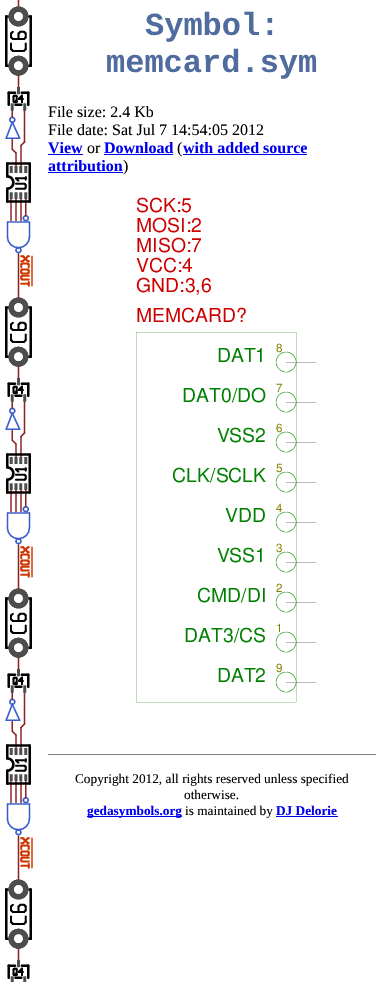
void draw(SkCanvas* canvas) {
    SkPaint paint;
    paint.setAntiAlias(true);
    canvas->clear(0xFFFFFFFF);
    canvas->drawImageRect(SkImages::DeferredFromEncodedData(SkData::MakeFromFileName("img1.png")), SkRect::MakeXYWH(5, 0, 28, 982), SkSamplingOptions());
    SkFont font1(fontMgr->matchFamilyStyle("Liberation Mono", SkFontStyle::Bold()), 32);
    font1.setSubpixel(true);
    paint.setColor(0xFF506B9E);
    canvas->drawString("Symbol:", 145, 35, font1, paint);
    canvas->drawString("memcard.sym", 106, 72, font1, paint);
    SkFont font2(fontMgr->matchFamilyStyle("Liberation Serif", SkFontStyle::Normal()), 16);
    font2.setSubpixel(true);
    paint.setColor(0xFF000000);
    canvas->drawString("File size: 2.4 Kb", 48, 117, font2, paint);
    canvas->drawString("File date: Sat Jul 7 14:54:05 2012", 48, 135, font2, paint);
    SkFont font3(fontMgr->matchFamilyStyle("Liberation Serif", SkFontStyle::Bold()), 16);
    font3.setSubpixel(true);
    paint.setColor(0xFF0000EE);
    canvas->drawString("View", 48, 153, font3, paint);
    canvas->drawRect(SkRect::MakeXYWH(48, 154, 35, 1), paint);
    paint.setColor(0xFF000000);
    canvas->drawString("or", 87, 153, font2, paint);
    paint.setColor(0xFF0000EE);
    canvas->drawString("Download", 104, 153, font3, paint);
    canvas->drawRect(SkRect::MakeXYWH(104, 154, 69, 1), paint);
    paint.setColor(0xFF000000);
    canvas->drawString("(", 177, 153, font2, paint);
    paint.setColor(0xFF0000EE);
    canvas->drawString("with added source", 183, 153, font3, paint);
    canvas->drawRect(SkRect::MakeXYWH(183, 154, 124, 1), paint);
    canvas->drawString("attribution", 48, 171, font3, paint);
    canvas->drawRect(SkRect::MakeXYWH(48, 172, 75, 1), paint);
    paint.setColor(0xFF000000);
    canvas->drawString(")", 123, 171, font2, paint);
    canvas->drawImageRect(SkImages::DeferredFromEncodedData(SkData::MakeFromFileName("img2.png")), SkRect::MakeXYWH(136, 197, 181, 506), SkSamplingOptions());
    paint.setColor(0xFF808080);
    canvas->drawRect(SkRect::MakeXYWH(48, 754, 328, 1), paint);
    SkFont font4(fontMgr->matchFamilyStyle("Liberation Serif", SkFontStyle::Normal()), 13.3f);
    font4.setSubpixel(true);
    paint.setColor(0xFF000000);
    canvas->drawString("Copyright 2012, all rights reserved unless specified", 75, 783, font4, paint);
    canvas->drawString("otherwise.", 184, 799, font4, paint);
    paint.setColor(0xFF0000EE);
    canvas->drawRect(SkRect::MakeXYWH(87, 816, 95, 1), paint);
    SkFont font5(fontMgr->matchFamilyStyle("Liberation Serif", SkFontStyle::Bold()), 13.3f);
    font5.setSubpixel(true);
    canvas->drawString("gedasymbols.org", 87, 815, font5, paint);
    paint.setColor(0xFF000000);
    canvas->drawString("is maintained by", 185, 815, font4, paint);
    paint.setColor(0xFF0000EE);
    canvas->drawString("DJ Delorie", 276, 815, font5, paint);
    canvas->drawRect(SkRect::MakeXYWH(276, 816, 62, 1), paint);
}
